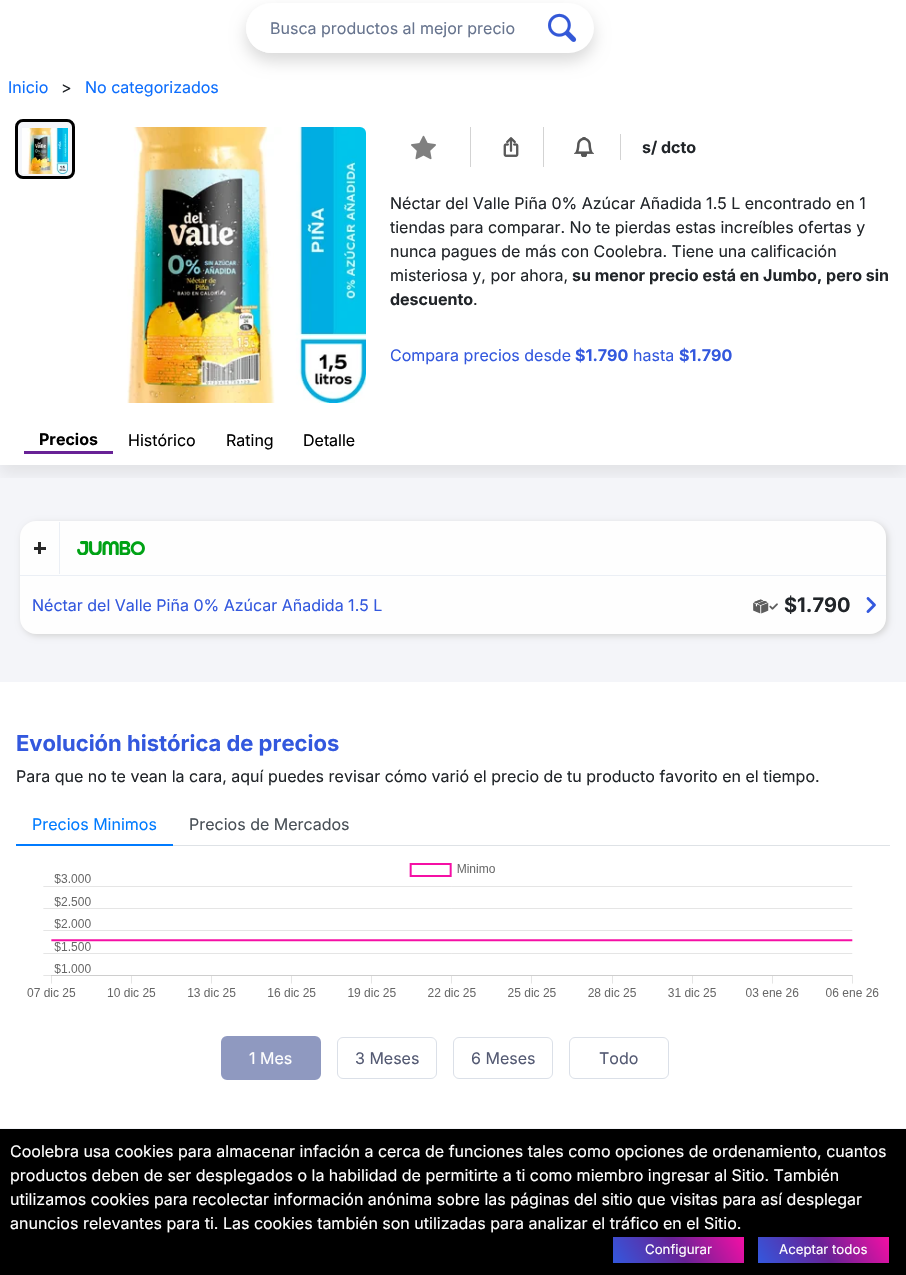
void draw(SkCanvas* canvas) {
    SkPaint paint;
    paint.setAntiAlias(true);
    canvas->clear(0xFFFFFFFF);
    paint.setColor(0x26000000);
    paint.setMaskFilter(SkMaskFilter::MakeBlur(kNormal_SkBlurStyle, 8));
    canvas->drawRoundRect(SkRect::MakeXYWH(246, 11, 348, 50), 25, 25, paint);
    paint.setMaskFilter(nullptr);
    paint.setColor(0xFFFFFFFF);
    canvas->drawRoundRect(SkRect::MakeXYWH(246, 3, 348, 50), 25, 25, paint);
    canvas->drawRoundRect(SkRect::MakeXYWH(246, 3, 300, 50), 25, 25, paint);
    SkFont font1(fontMgr->matchFamilyStyle("Inter", SkFontStyle::Normal()), 16);
    font1.setSubpixel(true);
    paint.setColor(0xFF67748E);
    canvas->drawString("Busca productos al mejor precio", 270, 34, font1, paint);
    canvas->drawImageRect(SkImages::DeferredFromEncodedData(SkData::MakeFromFileName("img1.png")), SkRect::MakeXYWH(548, 13, 29, 29), SkSamplingOptions());
    paint.setColor(0xFF0D6EFD);
    canvas->drawString("Inicio", 8, 93, font1, paint);
    paint.setColor(0xFF212529);
    canvas->drawString(">", 61, 93, font1, paint);
    paint.setColor(0xFF0D6EFD);
    canvas->drawString("No categorizados", 85, 93, font1, paint);
    paint.setColor(0xFFF4F5F9);
    canvas->drawRoundRect(SkRect::MakeXYWH(16.5f, 120.5f, 57, 57), 6.5f, 6.5f, paint);
    paint.setStyle(SkPaint::kStroke_Style);
    paint.setStrokeWidth(3);
    paint.setColor(0xFF000000);
    canvas->drawRoundRect(SkRect::MakeXYWH(16.5f, 120.5f, 57, 57), 6.5f, 6.5f, paint);
    canvas->drawImageRect(SkImages::DeferredFromEncodedData(SkData::MakeFromFileName("img2.png")), SkRect::MakeXYWH(22, 128, 46, 46), SkSamplingOptions());
    canvas->drawImageRect(SkImages::DeferredFromEncodedData(SkData::MakeFromFileName("img3.png")), SkRect::MakeXYWH(127, 127, 239, 276), SkSamplingOptions());
    canvas->drawImageRect(SkImages::DeferredFromEncodedData(SkData::MakeFromFileName("img4.png")), SkRect::MakeXYWH(411, 135, 25, 25), SkSamplingOptions());
    paint.setStyle(SkPaint::kFill_Style);
    paint.setColor(0xFFD3D3D3);
    canvas->drawRect(SkRect::MakeXYWH(470, 127, 1, 40), paint);
    canvas->drawImageRect(SkImages::DeferredFromEncodedData(SkData::MakeFromFileName("img5.png")), SkRect::MakeXYWH(503, 137, 16, 20), SkSamplingOptions());
    canvas->drawRect(SkRect::MakeXYWH(543, 127, 1, 40), paint);
    canvas->drawImageRect(SkImages::DeferredFromEncodedData(SkData::MakeFromFileName("img6.png")), SkRect::MakeXYWH(574, 137, 20, 20), SkSamplingOptions());
    canvas->drawRect(SkRect::MakeXYWH(620, 134, 1, 26), paint);
    SkFont font2(fontMgr->matchFamilyStyle("Inter", SkFontStyle::Bold()), 16);
    font2.setSubpixel(true);
    paint.setColor(0xFF212529);
    canvas->drawString("s/ dcto", 642, 153, font2, paint);
    canvas->drawString("Néctar del Valle Piña 0% Azúcar Añadida 1.5 L encontrado en 1", 390, 209, font1, paint);
    canvas->drawString("tiendas para comparar. No te pierdas estas increíbles ofertas y", 390, 233, font1, paint);
    canvas->drawString("nunca pagues de más con Coolebra. Tiene una calificación", 390, 257, font1, paint);
    canvas->drawString("misteriosa y, por ahora,", 390, 281, font1, paint);
    canvas->drawString("su menor precio está en Jumbo, pero sin", 572, 281, font2, paint);
    canvas->drawString("descuento", 390, 305, font2, paint);
    canvas->drawString(".", 473, 305, font1, paint);
    paint.setColor(0xFF3358DE);
    canvas->drawString("Compara precios desde", 390, 361, font1, paint);
    canvas->drawString("$1.790", 575, 361, font2, paint);
    canvas->drawString("hasta", 633, 361, font1, paint);
    canvas->drawString("$1.790", 679, 361, font2, paint);
    paint.setColor(0xFFF4F5F9);
    canvas->drawRect(SkRect::MakeXYWH(0, 465, 906, 217), paint);
    canvas->save();
    canvas->clipRect(SkRect::MakeXYWH(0, 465, 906, 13));
    paint.setColor(0x14000000);
    paint.setMaskFilter(SkMaskFilter::MakeBlur(kNormal_SkBlurStyle, 8));
    canvas->drawRect(SkRect::MakeXYWH(0, 423, 906, 50), paint);
    paint.setMaskFilter(nullptr);
    canvas->restore();
    paint.setColor(0xFF000000);
    canvas->drawString("Precios", 39, 445, font2, paint);
    paint.setColor(0xFF682296);
    canvas->drawRect(SkRect::MakeXYWH(24, 451, 89, 3), paint);
    paint.setColor(0xFF000000);
    canvas->drawString("Histórico", 128, 446, font1, paint);
    canvas->drawString("Rating", 226, 446, font1, paint);
    canvas->drawString("Detalle", 303, 446, font1, paint);
    paint.setColor(0xFFD3D3D3);
    paint.setMaskFilter(SkMaskFilter::MakeBlur(kNormal_SkBlurStyle, 3));
    canvas->drawRoundRect(SkRect::MakeXYWH(22, 523, 866, 113), 16, 16, paint);
    paint.setMaskFilter(nullptr);
    paint.setColor(0xFFFEFEFE);
    canvas->drawRoundRect(SkRect::MakeXYWH(20, 521, 866, 113), 16, 16, paint);
    paint.setColor(0xFFEBEFF5);
    canvas->drawRect(SkRect::MakeXYWH(20, 575, 866, 1), paint);
    canvas->drawRect(SkRect::MakeXYWH(59, 522, 1, 52), paint);
    paint.setColor(0xFF282828);
    canvas->drawRect(SkRect::MakeXYWH(34, 547, 12, 3), paint);
    canvas->drawRect(SkRect::MakeXYWH(38, 542, 3, 12), paint);
    canvas->drawImageRect(SkImages::DeferredFromEncodedData(SkData::MakeFromFileName("img7.png")), SkRect::MakeXYWH(77, 541, 68, 14), SkSamplingOptions());
    paint.setColor(0xFF3358DE);
    canvas->drawString("Néctar del Valle Piña 0% Azúcar Añadida 1.5 L", 32, 611, font1, paint);
    canvas->drawImageRect(SkImages::DeferredFromEncodedData(SkData::MakeFromFileName("img8.png")), SkRect::MakeXYWH(753, 599, 25, 15), SkSamplingOptions());
    SkFont font3(fontMgr->matchFamilyStyle("Inter", SkFontStyle::Bold()), 20);
    font3.setSubpixel(true);
    paint.setColor(0xFF212529);
    canvas->drawString("$1.790", 784, 612, font3, paint);
    canvas->drawImageRect(SkImages::DeferredFromEncodedData(SkData::MakeFromFileName("img9.png")), SkRect::MakeXYWH(866, 597, 10, 16), SkSamplingOptions());
    SkFont font4(fontMgr->matchFamilyStyle("Inter", SkFontStyle::Bold()), 22);
    font4.setSubpixel(true);
    paint.setColor(0xFF3358DE);
    canvas->drawString("Evolución histórica de precios", 16, 751, font4, paint);
    paint.setColor(0xFF212529);
    canvas->drawString("Para que no te vean la cara, aquí puedes revisar cómo varió el precio de tu producto favorito en el tiempo.", 16, 782, font1, paint);
    paint.setColor(0xFFDEE2E6);
    canvas->drawRect(SkRect::MakeXYWH(173, 845, 717, 1), paint);
    paint.setColor(0xFF007BFF);
    canvas->drawRect(SkRect::MakeXYWH(16, 844, 157, 2), paint);
    canvas->drawString("Precios Minimos", 32, 830, font1, paint);
    paint.setColor(0xFF495057);
    canvas->drawString("Precios de Mercados", 189, 830, font1, paint);
    canvas->drawImageRect(SkImages::DeferredFromEncodedData(SkData::MakeFromFileName("img10.png")), SkRect::MakeXYWH(27, 863, 852, 134), SkSamplingOptions());
    paint.setColor(0xFF8F99C0);
    canvas->drawRoundRect(SkRect::MakeXYWH(222, 1037, 98, 42), 5, 5, paint);
    paint.setStyle(SkPaint::kStroke_Style);
    paint.setStrokeWidth(2);
    canvas->drawRoundRect(SkRect::MakeXYWH(222, 1037, 98, 42), 5, 5, paint);
    paint.setStyle(SkPaint::kFill_Style);
    paint.setColor(0xFFFFFFFF);
    canvas->drawString("1 Mes", 249, 1064, font1, paint);
    paint.setStyle(SkPaint::kStroke_Style);
    paint.setStrokeWidth(1);
    paint.setColor(0xFFDBE0E8);
    canvas->drawRoundRect(SkRect::MakeXYWH(337.5f, 1037.5f, 99, 41), 5.5f, 5.5f, paint);
    paint.setStyle(SkPaint::kFill_Style);
    paint.setColor(0xFF545A73);
    canvas->drawString("3 Meses", 355, 1064, font1, paint);
    paint.setStyle(SkPaint::kStroke_Style);
    paint.setColor(0xFFDBE0E8);
    canvas->drawRoundRect(SkRect::MakeXYWH(453.5f, 1037.5f, 99, 41), 5.5f, 5.5f, paint);
    paint.setStyle(SkPaint::kFill_Style);
    paint.setColor(0xFF545A73);
    canvas->drawString("6 Meses", 471, 1064, font1, paint);
    paint.setStyle(SkPaint::kStroke_Style);
    paint.setColor(0xFFDBE0E8);
    canvas->drawRoundRect(SkRect::MakeXYWH(569.5f, 1037.5f, 99, 41), 5.5f, 5.5f, paint);
    paint.setStyle(SkPaint::kFill_Style);
    paint.setColor(0xFF545A73);
    canvas->drawString("Todo", 599, 1064, font1, paint);
    paint.setColor(0xFFF4F5F9);
    canvas->drawRect(SkRect::MakeXYWH(0, 1128, 906, 1), paint);
    paint.setColor(0xFF000000);
    canvas->drawRect(SkRect::MakeXYWH(0, 1129, 906, 146), paint);
    paint.setColor(0xFFFFFFFF);
    canvas->drawString("Coolebra usa cookies para almacenar infación a cerca de funciones tales como opciones de ordenamiento, cuantos", 10, 1157, font1, paint);
    canvas->drawString("productos deben de ser desplegados o la habilidad de permitirte a ti como miembro ingresar al Sitio. También", 10, 1181, font1, paint);
    canvas->drawString("utilizamos cookies para recolectar información anónima sobre las páginas del sitio que visitas para así desplegar", 10, 1205, font1, paint);
    canvas->drawString("anuncios relevantes para ti. Las cookies también son utilizadas para analizar el tráfico en el Sitio.", 10, 1229, font1, paint);
    {
        const SkColor colors[] = {0xFF3358DE, 0xFF682296, 0xFFF50FA5};
        const float stops[] = {0, 0.5f, 1};
        const SkPoint ends[] = {{624, 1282}, {733, 1218}};
        paint.setShader(SkGradientShader::MakeLinear(ends, colors, stops, 3, SkTileMode::kClamp));
        paint.setAlpha(255);
    }
    canvas->drawRect(SkRect::MakeXYWH(613, 1237, 131, 26), paint);
    SkFont font5(fontMgr->matchFamilyStyle("Inter", SkFontStyle::Normal()), 13.25f);
    font5.setSubpixel(true);
    paint.setShader(nullptr);
    paint.setColor(0xFFFFFFFF);
    canvas->drawString("Configurar", 645, 1254, font5, paint);
    {
        const SkColor colors[] = {0xFF3358DE, 0xFF682296, 0xFFF50FA5};
        const float stops[] = {0, 0.5f, 1};
        const SkPoint ends[] = {{769, 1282}, {878, 1218}};
        paint.setShader(SkGradientShader::MakeLinear(ends, colors, stops, 3, SkTileMode::kClamp));
        paint.setAlpha(255);
    }
    canvas->drawRect(SkRect::MakeXYWH(758, 1237, 131, 26), paint);
    paint.setShader(nullptr);
    paint.setColor(0xFFFFFFFF);
    canvas->drawString("Aceptar todos", 779, 1254, font5, paint);
}
